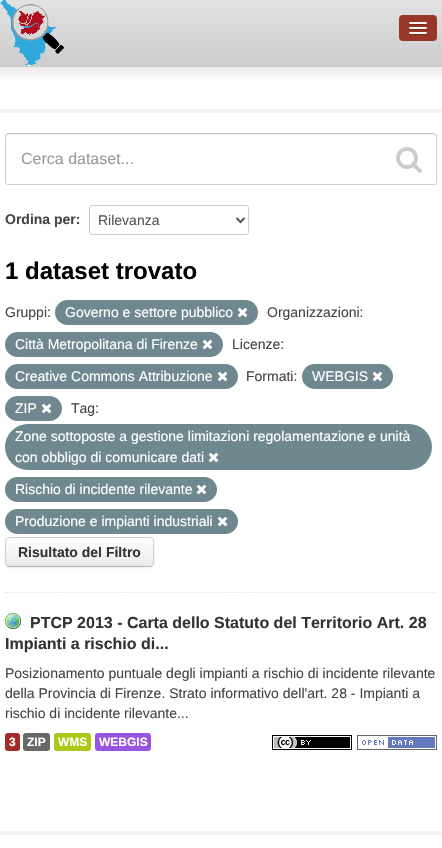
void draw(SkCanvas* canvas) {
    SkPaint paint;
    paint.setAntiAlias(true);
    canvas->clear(0xFFFFFFFF);
    paint.setColor(0xFFDDDDDD);
    paint.setMaskFilter(SkMaskFilter::MakeBlur(kNormal_SkBlurStyle, 7.5f));
    canvas->drawRect(SkRect::MakeXYWH(-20, 2, 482, 67), paint);
    paint.setMaskFilter(nullptr);
    {
        const SkColor colors[] = {0xFFE2E2E2, 0xFFCCCCCC};
        const float stops[] = {0, 1};
        const SkPoint ends[] = {{221, 0}, {221, 66}};
        paint.setShader(SkGradientShader::MakeLinear(ends, colors, stops, 2, SkTileMode::kClamp));
        paint.setAlpha(255);
    }
    canvas->drawRect(SkRect::MakeXYWH(0, 0, 442, 66), paint);
    paint.setShader(nullptr);
    paint.setColor(0xFFCCCCCC);
    canvas->drawRect(SkRect::MakeXYWH(0, 66, 442, 1), paint);
    canvas->drawImageRect(SkImages::DeferredFromEncodedData(SkData::MakeFromFileName("img1.png")), SkRect::MakeXYWH(0, 0, 64, 66), SkSamplingOptions());
    paint.setColor(0xFF983627);
    canvas->drawRoundRect(SkRect::MakeXYWH(399, 15, 38, 26), 4, 4, paint);
    paint.setColor(0xFF72291D);
    canvas->drawPath(SkPathBuilder().moveTo(409, 23.5f).cubicTo(408, 25.5f, 412.5f, 25, 412.5f, 25).lineTo(423.5f, 25).cubicTo(423.5f, 25, 428, 25.5f, 427, 23.5f).cubicTo(426, 24.5f, 419.5f, 24, 418, 24).cubicTo(416.5f, 24, 410, 24.5f, 409, 23.5f).close().detach(), paint);
    paint.setColor(0xFFF5F5F5);
    canvas->drawRoundRect(SkRect::MakeXYWH(409, 22, 18, 2), 1, 1, paint);
    paint.setColor(0xFF72291D);
    canvas->drawPath(SkPathBuilder().moveTo(409, 28.5f).cubicTo(408, 30.5f, 412.5f, 30, 412.5f, 30).lineTo(423.5f, 30).cubicTo(423.5f, 30, 428, 30.5f, 427, 28.5f).cubicTo(426, 29.5f, 419.5f, 29, 418, 29).cubicTo(416.5f, 29, 410, 29.5f, 409, 28.5f).close().detach(), paint);
    paint.setColor(0xFFF5F5F5);
    canvas->drawRoundRect(SkRect::MakeXYWH(409, 27, 18, 2), 1, 1, paint);
    paint.setColor(0xFF72291D);
    canvas->drawPath(SkPathBuilder().moveTo(409, 33.5f).cubicTo(408, 35.5f, 412.5f, 35, 412.5f, 35).lineTo(423.5f, 35).cubicTo(423.5f, 35, 428, 35.5f, 427, 33.5f).cubicTo(426, 34.5f, 419.5f, 34, 418, 34).cubicTo(416.5f, 34, 410, 34.5f, 409, 33.5f).close().detach(), paint);
    paint.setColor(0xFFF5F5F5);
    canvas->drawRoundRect(SkRect::MakeXYWH(409, 32, 18, 2), 1, 1, paint);
    paint.setStyle(SkPaint::kStroke_Style);
    paint.setStrokeWidth(4);
    paint.setColor(0xFFF2F2F2);
    canvas->drawRect(SkRect::MakeXYWH(-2, 111, 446, 722), paint);
    paint.setStrokeWidth(1);
    paint.setColor(0xFFDDDDDD);
    paint.setPathEffect(SkDashPathEffect::Make({{1, 1}}, 0));
    canvas->drawPath(SkPathBuilder().moveTo(5, 592.5f).lineTo(437, 592.5f).detach(), paint);
    paint.setPathEffect(nullptr);
    paint.setStyle(SkPaint::kFill_Style);
    paint.setColor(0xFFECECEC);
    canvas->drawPath(SkPathBuilder().moveTo(8, 135).lineTo(434, 135).cubicTo(435, 135, 436, 136, 436, 137).lineTo(436, 135).lineTo(434, 134).lineTo(8, 134).cubicTo(6, 134, 6, 136, 6, 137).cubicTo(6, 136, 7, 135, 8, 135).close().detach(), paint);
    paint.setStyle(SkPaint::kStroke_Style);
    paint.setColor(0xFFCCCCCC);
    canvas->drawRoundRect(SkRect::MakeXYWH(5.5f, 133.5f, 431, 51), 2.5f, 2.5f, paint);
    SkFont font1(fontMgr->matchFamilyStyle("Liberation Sans", SkFontStyle::Normal()), 16);
    font1.setSubpixel(true);
    paint.setStyle(SkPaint::kFill_Style);
    paint.setColor(0xFF999999);
    canvas->drawString("Cerca dataset...", 21, 164, font1, paint);
    canvas->drawImageRect(SkImages::DeferredFromEncodedData(SkData::MakeFromFileName("img2.png")), SkRect::MakeXYWH(396, 147, 26, 26), SkSamplingOptions());
    SkFont font2(fontMgr->matchFamilyStyle("Liberation Sans", SkFontStyle::Bold()), 14);
    font2.setSubpixel(true);
    paint.setColor(0xFF444444);
    canvas->drawString("Ordina per:", 5, 224, font2, paint);
    paint.setStyle(SkPaint::kStroke_Style);
    paint.setColor(0xFFCCCCCC);
    canvas->drawRoundRect(SkRect::MakeXYWH(89.5f, 205.5f, 159, 29), 2.5f, 2.5f, paint);
    paint.setStrokeWidth(2);
    paint.setColor(0xFF555555);
    canvas->drawPath(SkPathBuilder().moveTo(236.5f, 218).lineTo(240.5f, 222).lineTo(244.5f, 218).detach(), paint);
    SkFont font3(fontMgr->matchFamilyStyle("Liberation Sans", SkFontStyle::Normal()), 14);
    font3.setSubpixel(true);
    paint.setStyle(SkPaint::kFill_Style);
    canvas->drawString("Rilevanza", 98, 225, font3, paint);
    SkFont font4(fontMgr->matchFamilyStyle("Liberation Sans", SkFontStyle::Bold()), 24);
    font4.setSubpixel(true);
    paint.setColor(0xFF000000);
    canvas->drawString("1 dataset trovato", 5, 279, font4, paint);
    paint.setColor(0xFF444444);
    canvas->drawString("Gruppi:", 5, 317, font3, paint);
    paint.setColor(0xFF6F8890);
    canvas->drawRoundRect(SkRect::MakeXYWH(55, 300, 203, 25), 12.5f, 12.5f, paint);
    paint.setColor(0xFFFFFFFF);
    canvas->drawString("Governo e settore pubblico", 65, 317, font3, paint);
    canvas->drawImageRect(SkImages::DeferredFromEncodedData(SkData::MakeFromFileName("img3.png")), SkRect::MakeXYWH(237, 307, 11, 11), SkSamplingOptions());
    paint.setColor(0xFF444444);
    canvas->drawString("Organizzazioni:", 267, 317, font3, paint);
    paint.setColor(0xFF6F8890);
    canvas->drawRoundRect(SkRect::MakeXYWH(5, 332, 218, 25), 12.5f, 12.5f, paint);
    paint.setColor(0xFFFFFFFF);
    canvas->drawString("Città Metropolitana di Firenze", 15, 349, font3, paint);
    canvas->drawImageRect(SkImages::DeferredFromEncodedData(SkData::MakeFromFileName("img3.png")), SkRect::MakeXYWH(202, 339, 11, 11), SkSamplingOptions());
    paint.setColor(0xFF444444);
    canvas->drawString("Licenze:", 232, 349, font3, paint);
    paint.setColor(0xFF6F8890);
    canvas->drawRoundRect(SkRect::MakeXYWH(5, 364, 233, 25), 12.5f, 12.5f, paint);
    paint.setColor(0xFFFFFFFF);
    canvas->drawString("Creative Commons Attribuzione", 15, 381, font3, paint);
    canvas->drawImageRect(SkImages::DeferredFromEncodedData(SkData::MakeFromFileName("img3.png")), SkRect::MakeXYWH(217, 371, 11, 11), SkSamplingOptions());
    paint.setColor(0xFF444444);
    canvas->drawString("Formati:", 246, 381, font3, paint);
    paint.setColor(0xFF6F8890);
    canvas->drawRoundRect(SkRect::MakeXYWH(302, 364, 91, 25), 12.5f, 12.5f, paint);
    paint.setColor(0xFFFFFFFF);
    canvas->drawString("WEBGIS", 312, 381, font3, paint);
    canvas->drawImageRect(SkImages::DeferredFromEncodedData(SkData::MakeFromFileName("img3.png")), SkRect::MakeXYWH(372, 371, 11, 11), SkSamplingOptions());
    paint.setColor(0xFF6F8890);
    canvas->drawRoundRect(SkRect::MakeXYWH(5, 396, 57, 25), 12.5f, 12.5f, paint);
    paint.setColor(0xFFFFFFFF);
    canvas->drawString("ZIP", 15, 413, font3, paint);
    canvas->drawImageRect(SkImages::DeferredFromEncodedData(SkData::MakeFromFileName("img3.png")), SkRect::MakeXYWH(41, 403, 11, 11), SkSamplingOptions());
    paint.setColor(0xFF444444);
    canvas->drawString("Tag:", 71, 413, font3, paint);
    paint.setColor(0xFF6F8890);
    canvas->drawRoundRect(SkRect::MakeXYWH(5, 424, 427, 46), 23, 23, paint);
    paint.setColor(0xFFFFFFFF);
    canvas->drawString("Zone sottoposte a gestione limitazioni regolamentazione e unità", 15, 441, font3, paint);
    canvas->drawString("con obbligo di comunicare dati", 15, 462, font3, paint);
    canvas->drawImageRect(SkImages::DeferredFromEncodedData(SkData::MakeFromFileName("img3.png")), SkRect::MakeXYWH(208, 452, 11, 11), SkSamplingOptions());
    paint.setColor(0xFF6F8890);
    canvas->drawRoundRect(SkRect::MakeXYWH(5, 477, 212, 25), 12.5f, 12.5f, paint);
    paint.setColor(0xFFFFFFFF);
    canvas->drawString("Rischio di incidente rilevante", 15, 494, font3, paint);
    canvas->drawImageRect(SkImages::DeferredFromEncodedData(SkData::MakeFromFileName("img3.png")), SkRect::MakeXYWH(196, 484, 11, 11), SkSamplingOptions());
    paint.setColor(0xFF6F8890);
    canvas->drawRoundRect(SkRect::MakeXYWH(5, 509, 233, 25), 12.5f, 12.5f, paint);
    paint.setColor(0xFFFFFFFF);
    canvas->drawString("Produzione e impianti industriali", 15, 526, font3, paint);
    canvas->drawImageRect(SkImages::DeferredFromEncodedData(SkData::MakeFromFileName("img3.png")), SkRect::MakeXYWH(217, 516, 11, 11), SkSamplingOptions());
    paint.setColor(0x0D000000);
    paint.setMaskFilter(SkMaskFilter::MakeBlur(kNormal_SkBlurStyle, 1));
    canvas->drawRoundRect(SkRect::MakeXYWH(5, 538, 149, 30), 4, 4, paint);
    paint.setMaskFilter(nullptr);
    canvas->save();
    canvas->clipPath(SkPathBuilder().moveTo(9, 537).lineTo(150, 537).cubicTo(152, 537, 154, 539, 154, 541).lineTo(154, 563).cubicTo(154, 565, 152, 567, 150, 567).lineTo(9, 567).cubicTo(7, 567, 5, 565, 5, 563).lineTo(5, 541).cubicTo(5, 539, 7, 537, 9, 537).close().detach(), true);
    {
        const SkColor colors[] = {0xFFFFFFFF, 0xFFEAEAEA};
        const float stops[] = {0, 1};
        const SkPoint ends[] = {{80, 538}, {80, 566}};
        paint.setShader(SkGradientShader::MakeLinear(ends, colors, stops, 2, SkTileMode::kClamp));
        paint.setAlpha(255);
    }
    canvas->drawRect(SkRect::MakeXYWH(5, 538, 149, 28), paint);
    canvas->restore();
    paint.setStyle(SkPaint::kStroke_Style);
    paint.setStrokeWidth(1);
    paint.setShader(nullptr);
    paint.setColor(0xFFB3B3B3);
    canvas->drawPath(SkPathBuilder().moveTo(152.5f, 565.5f).cubicTo(152, 566, 151, 566.5f, 150, 566.5f).lineTo(9, 566.5f).cubicTo(8, 566.5f, 7, 566, 6.5f, 565.5f).detach(), paint);
    paint.setColor(0xFFCCCCCC);
    canvas->drawPath(SkPathBuilder().moveTo(6.5f, 565.5f).cubicTo(4.5f, 563.5f, 5.5f, 555, 5.5f, 552).lineTo(5.5f, 544.5f).cubicTo(5.5f, 542, 5, 537.5f, 9, 537.5f).lineTo(150, 537.5f).cubicTo(154, 537.5f, 153.5f, 542, 153.5f, 544.5f).lineTo(153.5f, 552).cubicTo(153.5f, 555, 154.5f, 563.5f, 152.5f, 565.5f).detach(), paint);
    paint.setStyle(SkPaint::kFill_Style);
    paint.setColor(0xFF333333);
    canvas->drawString("Risultato del Filtro", 18, 557, font2, paint);
    canvas->drawImageRect(SkImages::DeferredFromEncodedData(SkData::MakeFromFileName("img4.png")), SkRect::MakeXYWH(5, 613, 16, 16), SkSamplingOptions());
    SkFont font5(fontMgr->matchFamilyStyle("Liberation Sans", SkFontStyle::Bold()), 16);
    font5.setSubpixel(true);
    canvas->drawString("PTCP 2013 - Carta dello Statuto del Territorio Art. 28", 30, 628, font5, paint);
    canvas->drawString("Impianti a rischio di...", 5, 649, font5, paint);
    paint.setColor(0xFF444444);
    canvas->drawString("Posizionamento puntuale degli impianti a rischio di incidente rilevante", 5, 678, font3, paint);
    canvas->drawString("della Provincia di Firenze. Strato informativo dell'art. 28 - Impianti a", 5, 698, font3, paint);
    canvas->drawString("rischio di incidente rilevante...", 5, 718, font3, paint);
    paint.setColor(0xFFA52A2A);
    canvas->drawRoundRect(SkRect::MakeXYWH(5, 733, 15, 18), 3, 3, paint);
    SkFont font6(fontMgr->matchFamilyStyle("Liberation Sans", SkFontStyle::Bold()), 12);
    font6.setSubpixel(true);
    paint.setColor(0xFFFFFFFF);
    canvas->drawString("3", 9, 746, font6, paint);
    paint.setColor(0xFF686868);
    canvas->drawRoundRect(SkRect::MakeXYWH(23, 733, 27, 18), 3, 3, paint);
    paint.setColor(0xFFFFFFFF);
    canvas->drawString("ZIP", 27, 746, font6, paint);
    paint.setColor(0xFFADC717);
    canvas->drawRoundRect(SkRect::MakeXYWH(54, 733, 37, 18), 3, 3, paint);
    paint.setColor(0xFFFFFFFF);
    canvas->drawString("WMS", 58, 746, font6, paint);
    paint.setColor(0xFF9855E0);
    canvas->drawRoundRect(SkRect::MakeXYWH(95, 733, 56, 18), 3, 3, paint);
    paint.setColor(0xFFFFFFFF);
    canvas->drawString("WEBGIS", 99, 746, font6, paint);
    canvas->drawImageRect(SkImages::DeferredFromEncodedData(SkData::MakeFromFileName("img5.png")), SkRect::MakeXYWH(272, 735, 80, 15), SkSamplingOptions());
    canvas->drawImageRect(SkImages::DeferredFromEncodedData(SkData::MakeFromFileName("img6.png")), SkRect::MakeXYWH(357, 735, 80, 15), SkSamplingOptions());
}
